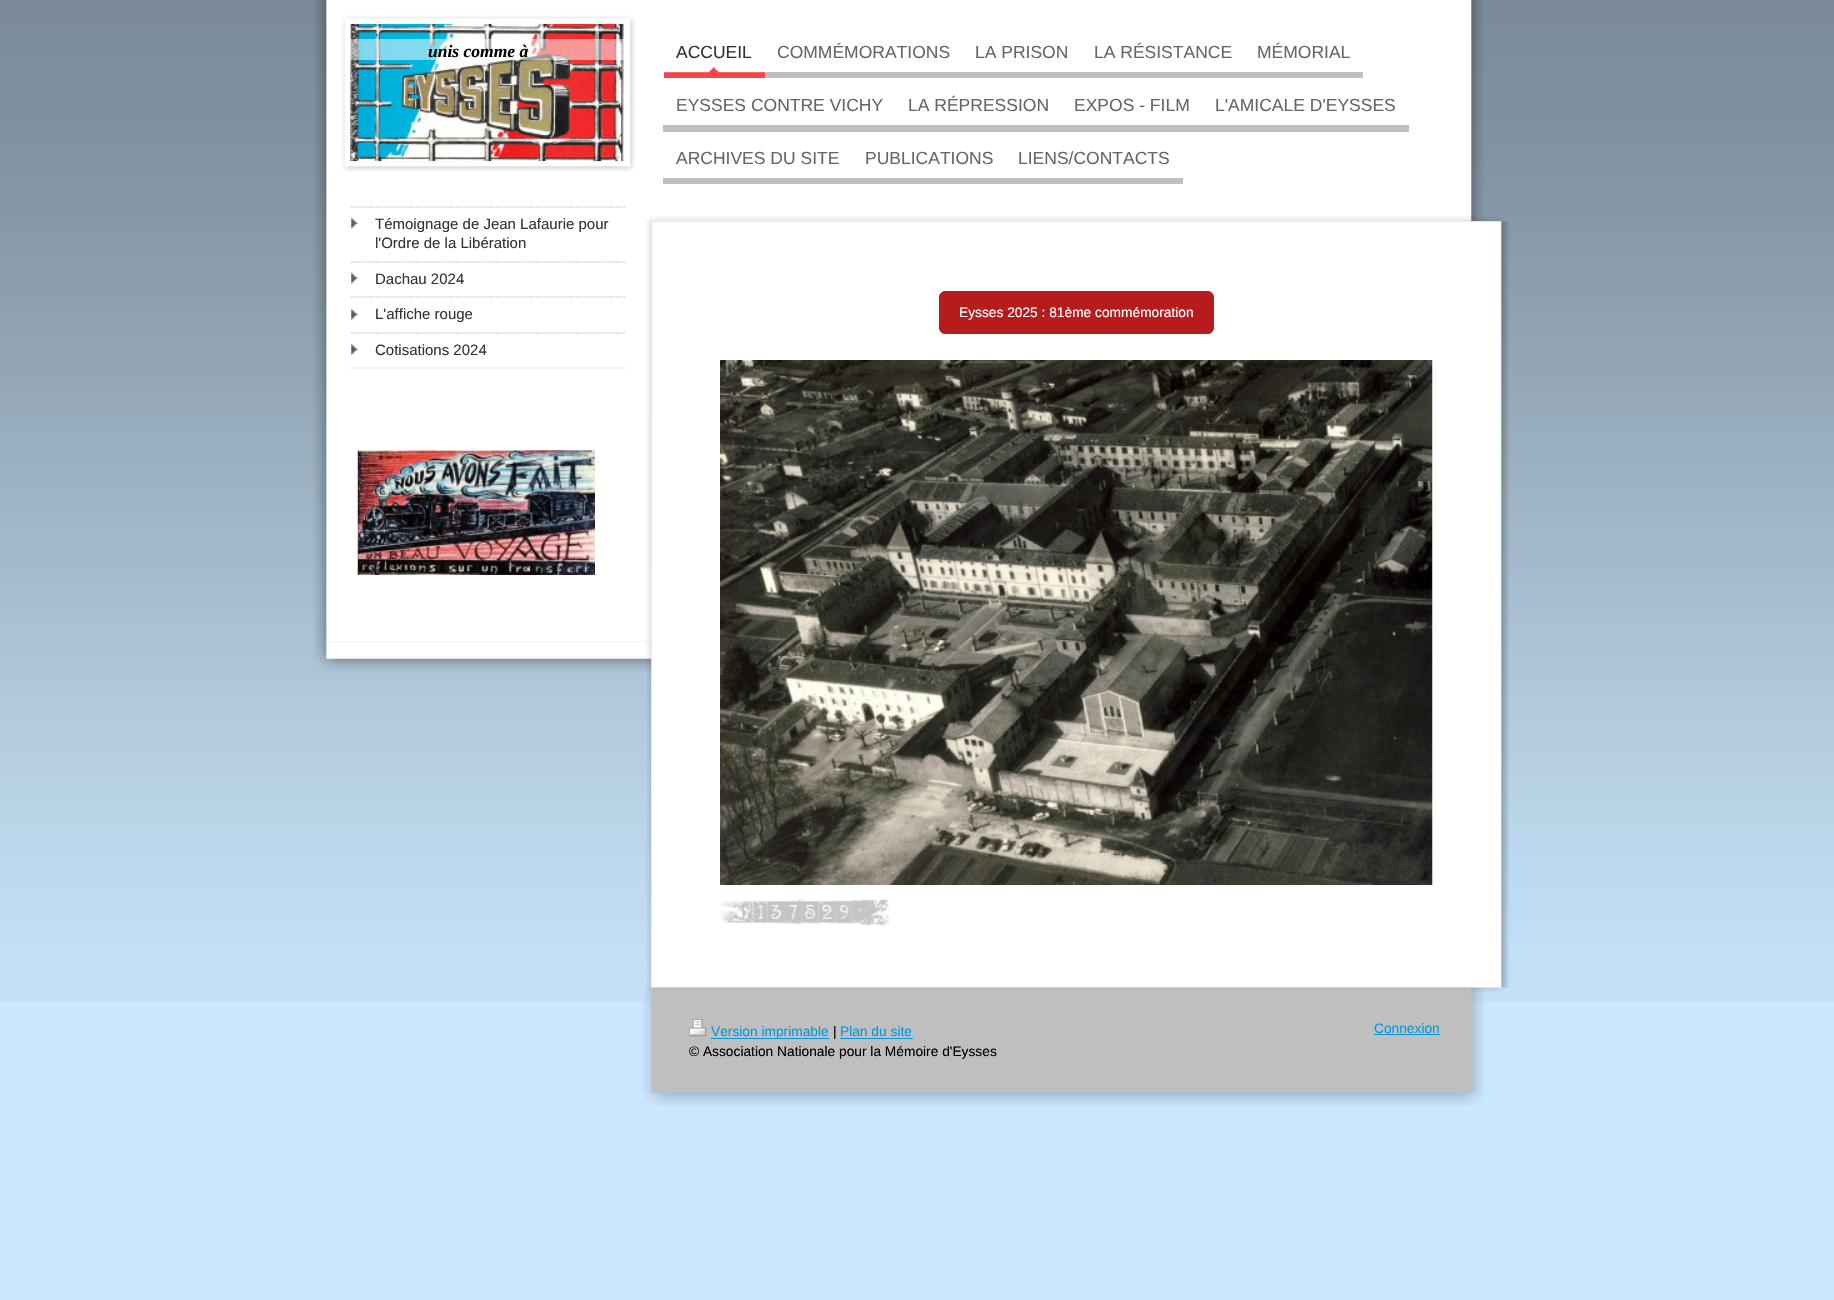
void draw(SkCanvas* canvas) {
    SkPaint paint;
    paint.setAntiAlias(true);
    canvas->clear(0xFFCBE7FD);
    canvas->drawImageRect(SkImages::DeferredFromEncodedData(SkData::MakeFromFileName("img1.png")), SkRect::MakeXYWH(0, 0, 1834, 1002), SkSamplingOptions());
    canvas->drawImageRect(SkImages::DeferredFromEncodedData(SkData::MakeFromFileName("img2.png")), SkRect::MakeXYWH(313, 0, 339, 642), SkSamplingOptions());
    canvas->drawImageRect(SkImages::DeferredFromEncodedData(SkData::MakeFromFileName("img3.png")), SkRect::MakeXYWH(341, 15, 294, 157), SkSamplingOptions());
    canvas->drawImageRect(SkImages::DeferredFromEncodedData(SkData::MakeFromFileName("img4.png")), SkRect::MakeXYWH(350, 23, 275, 139), SkSamplingOptions());
    paint.setColor(0x80FFFFFF);
    canvas->drawRect(SkRect::MakeXYWH(350, 39, 275, 21), paint);
    SkFont font1(fontMgr->matchFamilyStyle("Liberation Serif", SkFontStyle::BoldItalic()), 17.5f);
    font1.setSubpixel(true);
    paint.setColor(0xFF000000);
    canvas->drawString("unis comme à", 428, 57, font1, paint);
    paint.setStyle(SkPaint::kStroke_Style);
    paint.setStrokeWidth(1.2f);
    paint.setColor(0xFFCAD1D5);
    paint.setPathEffect(SkDashPathEffect::Make({{1.25f, 1.25f}}, 0));
    canvas->drawPath(SkPathBuilder().moveTo(351, 207).lineTo(626, 207).detach(), paint);
    paint.setPathEffect(nullptr);
    canvas->drawImageRect(SkImages::DeferredFromEncodedData(SkData::MakeFromFileName("img5.png")), SkRect::MakeXYWH(351, 217, 7, 12), SkSamplingOptions());
    paint.setPathEffect(SkDashPathEffect::Make({{1.25f, 1.25f}}, 0));
    canvas->drawPath(SkPathBuilder().moveTo(351, 207).lineTo(626, 207).detach(), paint);
    paint.setPathEffect(nullptr);
    paint.setPathEffect(SkDashPathEffect::Make({{1.25f, 1.25f}}, 0));
    canvas->drawPath(SkPathBuilder().moveTo(351, 262).lineTo(626, 262).detach(), paint);
    paint.setPathEffect(nullptr);
    SkFont font2(fontMgr->matchFamilyStyle("Liberation Sans", SkFontStyle::Normal()), 15);
    font2.setSubpixel(true);
    paint.setStyle(SkPaint::kFill_Style);
    paint.setColor(0xFF333333);
    canvas->drawString("Témoignage de Jean Lafaurie pour", 375, 229, font2, paint);
    canvas->drawString("l'Ordre de la Libération", 375, 248, font2, paint);
    canvas->drawImageRect(SkImages::DeferredFromEncodedData(SkData::MakeFromFileName("img5.png")), SkRect::MakeXYWH(351, 272, 7, 12), SkSamplingOptions());
    paint.setStyle(SkPaint::kStroke_Style);
    paint.setColor(0xFFCAD1D5);
    paint.setPathEffect(SkDashPathEffect::Make({{1.25f, 1.25f}}, 0));
    canvas->drawPath(SkPathBuilder().moveTo(351, 262).lineTo(626, 262).detach(), paint);
    paint.setPathEffect(nullptr);
    paint.setPathEffect(SkDashPathEffect::Make({{1.25f, 1.25f}}, 0));
    canvas->drawPath(SkPathBuilder().moveTo(351, 297).lineTo(626, 297).detach(), paint);
    paint.setPathEffect(nullptr);
    paint.setStyle(SkPaint::kFill_Style);
    paint.setColor(0xFF333333);
    canvas->drawString("Dachau 2024", 375, 284, font2, paint);
    canvas->drawImageRect(SkImages::DeferredFromEncodedData(SkData::MakeFromFileName("img6.png")), SkRect::MakeXYWH(351, 308, 7, 12), SkSamplingOptions());
    paint.setStyle(SkPaint::kStroke_Style);
    paint.setColor(0xFFCAD1D5);
    paint.setPathEffect(SkDashPathEffect::Make({{1.25f, 1.25f}}, 0));
    canvas->drawPath(SkPathBuilder().moveTo(351, 297).lineTo(626, 297).detach(), paint);
    paint.setPathEffect(nullptr);
    paint.setPathEffect(SkDashPathEffect::Make({{1.25f, 1.25f}}, 0));
    canvas->drawPath(SkPathBuilder().moveTo(351, 333).lineTo(626, 333).detach(), paint);
    paint.setPathEffect(nullptr);
    paint.setStyle(SkPaint::kFill_Style);
    paint.setColor(0xFF333333);
    canvas->drawString("L'affiche rouge", 375, 319, font2, paint);
    canvas->drawImageRect(SkImages::DeferredFromEncodedData(SkData::MakeFromFileName("img6.png")), SkRect::MakeXYWH(351, 343, 7, 12), SkSamplingOptions());
    paint.setStyle(SkPaint::kStroke_Style);
    paint.setColor(0xFFCAD1D5);
    paint.setPathEffect(SkDashPathEffect::Make({{1.25f, 1.25f}}, 0));
    canvas->drawPath(SkPathBuilder().moveTo(351, 333).lineTo(626, 333).detach(), paint);
    paint.setPathEffect(nullptr);
    paint.setPathEffect(SkDashPathEffect::Make({{1.25f, 1.25f}}, 0));
    canvas->drawPath(SkPathBuilder().moveTo(351, 368).lineTo(626, 368).detach(), paint);
    paint.setPathEffect(nullptr);
    paint.setStyle(SkPaint::kFill_Style);
    paint.setColor(0xFF333333);
    canvas->drawString("Cotisations 2024", 375, 355, font2, paint);
    canvas->drawImageRect(SkImages::DeferredFromEncodedData(SkData::MakeFromFileName("img7.png")), SkRect::MakeXYWH(357, 450, 238, 125), SkSamplingOptions());
    canvas->drawImageRect(SkImages::DeferredFromEncodedData(SkData::MakeFromFileName("img8.png")), SkRect::MakeXYWH(313, 641, 339, 31), SkSamplingOptions());
    canvas->drawImageRect(SkImages::DeferredFromEncodedData(SkData::MakeFromFileName("img9.png")), SkRect::MakeXYWH(651, 0, 833, 222), SkSamplingOptions());
    paint.setColor(0xFFF74448);
    canvas->drawRect(SkRect::MakeXYWH(664, 67, 101, 11), paint);
    canvas->drawImageRect(SkImages::DeferredFromEncodedData(SkData::MakeFromFileName("img10.png")), SkRect::MakeXYWH(664, 38, 101, 35), SkSamplingOptions());
    SkFont font3(fontMgr->matchFamilyStyle("Liberation Sans", SkFontStyle::Normal()), 17.5f);
    font3.setSubpixel(true);
    paint.setColor(0xFF333333);
    canvas->drawString("ACCUEIL", 676, 58, font3, paint);
    paint.setColor(0xFFBFBFBF);
    canvas->drawRect(SkRect::MakeXYWH(765, 72, 598, 6), paint);
    paint.setColor(0xFF666666);
    canvas->drawString("COMMÉMORATIONS", 777, 58, font3, paint);
    canvas->drawString("LA PRISON", 975, 58, font3, paint);
    canvas->drawString("LA RÉSISTANCE", 1094, 58, font3, paint);
    canvas->drawString("MÉMORIAL", 1257, 58, font3, paint);
    paint.setColor(0xFFBFBFBF);
    canvas->drawRect(SkRect::MakeXYWH(663, 125, 746, 7), paint);
    paint.setColor(0xFF666666);
    canvas->drawString("EYSSES CONTRE VICHY", 676, 111, font3, paint);
    canvas->drawString("LA RÉPRESSION", 908, 111, font3, paint);
    canvas->drawString("EXPOS - FILM", 1074, 111, font3, paint);
    canvas->drawString("L'AMICALE D'EYSSES", 1215, 111, font3, paint);
    paint.setColor(0xFFBFBFBF);
    canvas->drawRect(SkRect::MakeXYWH(663, 178, 520, 6), paint);
    paint.setColor(0xFF666666);
    canvas->drawString("ARCHIVES DU SITE", 676, 164, font3, paint);
    canvas->drawString("PUBLICATIONS", 865, 164, font3, paint);
    canvas->drawString("LIENS/CONTACTS", 1018, 164, font3, paint);
    canvas->drawImageRect(SkImages::DeferredFromEncodedData(SkData::MakeFromFileName("img11.png")), SkRect::MakeXYWH(648, 216, 856, 5), SkSamplingOptions());
    canvas->drawImageRect(SkImages::DeferredFromEncodedData(SkData::MakeFromFileName("img12.png")), SkRect::MakeXYWH(646, 221, 863, 767), SkSamplingOptions());
    paint.setColor(0xFFB71C1C);
    canvas->drawRoundRect(SkRect::MakeXYWH(939.5f, 291.5f, 274, 42), 5.5f, 5.5f, paint);
    paint.setStyle(SkPaint::kStroke_Style);
    paint.setStrokeWidth(1);
    canvas->drawRoundRect(SkRect::MakeXYWH(939.5f, 291.5f, 274, 42), 5.5f, 5.5f, paint);
    SkFont font4(fontMgr->matchFamilyStyle("Liberation Sans", SkFontStyle::Normal()), 13.75f);
    font4.setSubpixel(true);
    paint.setStyle(SkPaint::kFill_Style);
    paint.setColor(0xFFFFFFFF);
    canvas->drawString("Eysses 2025 : 81ème commémoration", 959, 317, font4, paint);
    canvas->drawImageRect(SkImages::DeferredFromEncodedData(SkData::MakeFromFileName("img13.png")), SkRect::MakeXYWH(720, 360, 713, 525), SkSamplingOptions());
    canvas->drawImageRect(SkImages::DeferredFromEncodedData(SkData::MakeFromFileName("img14.png")), SkRect::MakeXYWH(720, 900, 34, 24), SkSamplingOptions());
    canvas->drawImageRect(SkImages::DeferredFromEncodedData(SkData::MakeFromFileName("img15.png")), SkRect::MakeXYWH(753, 900, 15, 24), SkSamplingOptions());
    canvas->drawImageRect(SkImages::DeferredFromEncodedData(SkData::MakeFromFileName("img16.png")), SkRect::MakeXYWH(767, 899, 18, 25), SkSamplingOptions());
    canvas->drawImageRect(SkImages::DeferredFromEncodedData(SkData::MakeFromFileName("img17.png")), SkRect::MakeXYWH(785, 899, 17, 25), SkSamplingOptions());
    canvas->drawImageRect(SkImages::DeferredFromEncodedData(SkData::MakeFromFileName("img18.png")), SkRect::MakeXYWH(801, 898, 18, 26), SkSamplingOptions());
    canvas->drawImageRect(SkImages::DeferredFromEncodedData(SkData::MakeFromFileName("img19.png")), SkRect::MakeXYWH(819, 899, 18, 25), SkSamplingOptions());
    canvas->drawImageRect(SkImages::DeferredFromEncodedData(SkData::MakeFromFileName("img20.png")), SkRect::MakeXYWH(836, 899, 16, 25), SkSamplingOptions());
    canvas->drawImageRect(SkImages::DeferredFromEncodedData(SkData::MakeFromFileName("img21.png")), SkRect::MakeXYWH(851, 898, 38, 28), SkSamplingOptions());
    canvas->drawImageRect(SkImages::DeferredFromEncodedData(SkData::MakeFromFileName("img22.png")), SkRect::MakeXYWH(648, 987, 856, 6), SkSamplingOptions());
    canvas->drawImageRect(SkImages::DeferredFromEncodedData(SkData::MakeFromFileName("img23.png")), SkRect::MakeXYWH(643, 987, 841, 106), SkSamplingOptions());
    canvas->drawImageRect(SkImages::DeferredFromEncodedData(SkData::MakeFromFileName("img24.png")), SkRect::MakeXYWH(689, 1019, 18, 18), SkSamplingOptions());
    paint.setColor(0xFF0099E1);
    canvas->drawRect(SkRect::MakeXYWH(711, 1038, 118, 1), paint);
    canvas->drawString("Version imprimable", 711, 1036, font4, paint);
    paint.setColor(0xFF000000);
    canvas->drawString("|", 833, 1036, font4, paint);
    paint.setColor(0xFF0099E1);
    canvas->drawString("Plan du site", 840, 1036, font4, paint);
    canvas->drawRect(SkRect::MakeXYWH(840, 1038, 73, 1), paint);
    paint.setColor(0xFF000000);
    canvas->drawString("© Association Nationale pour la Mémoire d'Eysses", 689, 1056, font4, paint);
    paint.setColor(0xFF0099E1);
    canvas->drawString("Connexion", 1374, 1033, font4, paint);
    canvas->drawRect(SkRect::MakeXYWH(1374, 1034, 66, 1), paint);
    canvas->drawImageRect(SkImages::DeferredFromEncodedData(SkData::MakeFromFileName("img25.png")), SkRect::MakeXYWH(645, 1092, 838, 14), SkSamplingOptions());
}
